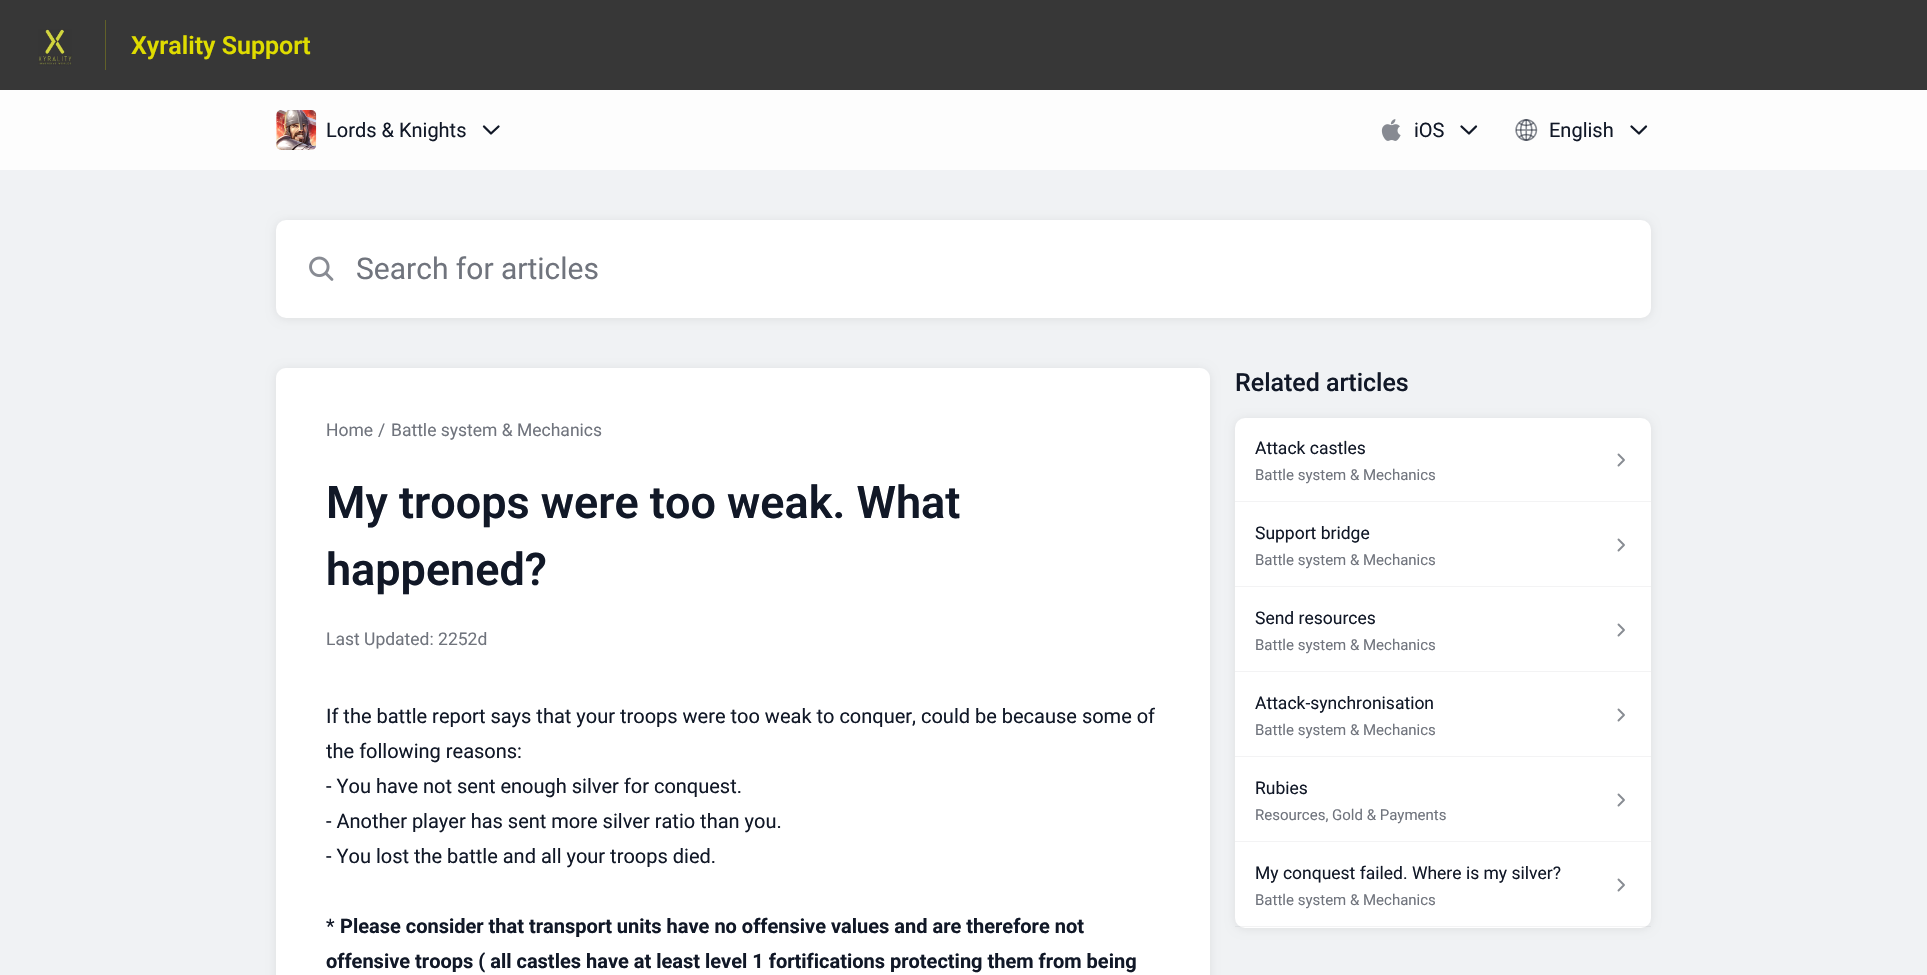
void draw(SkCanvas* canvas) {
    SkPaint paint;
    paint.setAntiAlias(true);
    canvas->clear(0xFFFDFDFD);
    paint.setColor(0xFF373737);
    canvas->drawRect(SkRect::MakeXYWH(0, 0, 1927, 90), paint);
    paint.setColor(0xFF616029);
    canvas->drawRect(SkRect::MakeXYWH(105, 20, 1, 50), paint);
    canvas->drawImageRect(SkImages::DeferredFromEncodedData(SkData::MakeFromFileName("img1.png")), SkRect::MakeXYWH(38, 29, 34, 37), SkSamplingOptions());
    SkFont font1(fontMgr->matchFamilyStyle("Roboto", SkFontStyle(600, SkFontStyle::kNormal_Width, SkFontStyle::kUpright_Slant)), 25);
    font1.setSubpixel(true);
    paint.setColor(0xFFDFDC00);
    canvas->drawString("Xyrality Support", 131, 54, font1, paint);
    canvas->drawImageRect(SkImages::DeferredFromEncodedData(SkData::MakeFromFileName("img2.png")), SkRect::MakeXYWH(276, 110, 41, 40), SkSamplingOptions());
    SkFont font2(fontMgr->matchFamilyStyle("Roboto", SkFontStyle::Normal()), 20);
    font2.setSubpixel(true);
    paint.setColor(0xFF111827);
    canvas->drawString("Lords & Knights", 326, 137, font2, paint);
    paint.setStyle(SkPaint::kStroke_Style);
    paint.setStrokeWidth(2.3f);
    paint.setStrokeCap(SkPaint::kRound_Cap);
    paint.setStrokeJoin(SkPaint::kRound_Join);
    canvas->drawPath(SkPathBuilder().moveTo(484, 126.5f).lineTo(491, 133.5f).lineTo(498.5f, 126.5f).detach(), paint);
    canvas->drawImageRect(SkImages::DeferredFromEncodedData(SkData::MakeFromFileName("img3.png")), SkRect::MakeXYWH(1381, 119, 20, 22), SkSamplingOptions());
    paint.setStyle(SkPaint::kFill_Style);
    canvas->drawString("iOS", 1414, 137, font2, paint);
    paint.setStyle(SkPaint::kStroke_Style);
    canvas->drawPath(SkPathBuilder().moveTo(1461.5f, 126.5f).lineTo(1469, 133.5f).lineTo(1476, 126.5f).detach(), paint);
    canvas->drawImageRect(SkImages::DeferredFromEncodedData(SkData::MakeFromFileName("img4.png")), SkRect::MakeXYWH(1515, 119, 23, 22), SkSamplingOptions());
    paint.setStyle(SkPaint::kFill_Style);
    canvas->drawString("English", 1549, 137, font2, paint);
    paint.setStyle(SkPaint::kStroke_Style);
    canvas->drawPath(SkPathBuilder().moveTo(1631.5f, 126.5f).lineTo(1639, 133.5f).lineTo(1646, 126.5f).detach(), paint);
    paint.setStyle(SkPaint::kFill_Style);
    paint.setColor(0xFFF0F2F4);
    canvas->drawRect(SkRect::MakeXYWH(0, 170, 1927, 805), paint);
    paint.setColor(0x14000000);
    paint.setMaskFilter(SkMaskFilter::MakeBlur(kNormal_SkBlurStyle, 5));
    canvas->drawRoundRect(SkRect::MakeXYWH(276, 221, 1375, 98), 10, 10, paint);
    paint.setMaskFilter(nullptr);
    paint.setColor(0xFFFFFFFF);
    canvas->drawRoundRect(SkRect::MakeXYWH(276, 220, 1375, 98), 10, 10, paint);
    canvas->drawImageRect(SkImages::DeferredFromEncodedData(SkData::MakeFromFileName("img5.png")), SkRect::MakeXYWH(309, 256, 25, 25), SkSamplingOptions());
    SkFont font3(fontMgr->matchFamilyStyle("Roboto", SkFontStyle::Normal()), 30);
    font3.setSubpixel(true);
    paint.setColor(0xFF70747D);
    canvas->drawString("Search for articles", 356, 279, font3, paint);
    paint.setColor(0x14000000);
    paint.setMaskFilter(SkMaskFilter::MakeBlur(kNormal_SkBlurStyle, 5));
    canvas->drawRoundRect(SkRect::MakeXYWH(276, 369, 934, 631), 10, 10, paint);
    paint.setMaskFilter(nullptr);
    paint.setColor(0xFFFFFFFF);
    canvas->drawPath(SkPathBuilder().moveTo(286, 368).lineTo(1200, 368).cubicTo(1205.5f, 368, 1210, 372.5f, 1210, 378).lineTo(1210, 975).lineTo(276, 975).lineTo(276, 378).cubicTo(276, 372.5f, 280.5f, 368, 286, 368).close().detach(), paint);
    SkFont font4(fontMgr->matchFamilyStyle("Roboto", SkFontStyle::Normal()), 17.5f);
    font4.setSubpixel(true);
    paint.setColor(0xFF70747D);
    canvas->drawString("Home", 326, 436, font4, paint);
    canvas->drawString("/", 378, 436, font4, paint);
    canvas->drawString("Battle system & Mechanics", 391, 436, font4, paint);
    SkFont font5(fontMgr->matchFamilyStyle("Roboto", SkFontStyle(600, SkFontStyle::kNormal_Width, SkFontStyle::kUpright_Slant)), 45);
    font5.setSubpixel(true);
    paint.setColor(0xFF111827);
    canvas->drawString("My troops were too weak. What", 326, 518, font5, paint);
    canvas->drawString("happened?", 326, 585, font5, paint);
    paint.setColor(0xFF70747D);
    canvas->drawString("Last Updated: 2252d", 326, 645, font4, paint);
    paint.setColor(0xFF111827);
    canvas->drawString("If the battle report says that your troops were too weak to conquer, could be because some of", 326, 723, font2, paint);
    canvas->drawString("the following reasons:", 326, 758, font2, paint);
    canvas->drawString("- You have not sent enough silver for conquest.", 326, 793, font2, paint);
    canvas->drawString("- Another player has sent more silver ratio than you.", 326, 828, font2, paint);
    canvas->drawString("- You lost the battle and all your troops died.", 326, 863, font2, paint);
    canvas->drawString("*", 326, 933, font2, paint);
    SkFont font6(fontMgr->matchFamilyStyle("Roboto", SkFontStyle::Bold()), 20);
    font6.setSubpixel(true);
    canvas->drawString("Please consider that transport units have no offensive values and are therefore not", 340, 933, font6, paint);
    canvas->drawString("offensive troops ( all castles have at least level 1 fortifications protecting them from being", 326, 968, font6, paint);
    SkFont font7(fontMgr->matchFamilyStyle("Roboto", SkFontStyle(500, SkFontStyle::kNormal_Width, SkFontStyle::kUpright_Slant)), 25);
    font7.setSubpixel(true);
    canvas->drawString("Related articles", 1235, 391, font7, paint);
    paint.setColor(0x14000000);
    paint.setMaskFilter(SkMaskFilter::MakeBlur(kNormal_SkBlurStyle, 5));
    canvas->drawRoundRect(SkRect::MakeXYWH(1235, 419, 416, 510), 10, 10, paint);
    paint.setMaskFilter(nullptr);
    paint.setColor(0xFFFFFFFF);
    canvas->drawRoundRect(SkRect::MakeXYWH(1235, 418, 416, 510), 10, 10, paint);
    paint.setColor(0xFFF3F3F4);
    canvas->drawRect(SkRect::MakeXYWH(1235, 501, 416, 1), paint);
    paint.setColor(0xFF111827);
    canvas->drawString("Attack castles", 1255, 454, font4, paint);
    SkFont font8(fontMgr->matchFamilyStyle("Roboto", SkFontStyle::Normal()), 15);
    font8.setSubpixel(true);
    paint.setColor(0xFF70747D);
    canvas->drawString("Battle system & Mechanics", 1255, 480, font8, paint);
    paint.setStyle(SkPaint::kStroke_Style);
    paint.setStrokeWidth(1.9f);
    paint.setColor(0xFF888C93);
    canvas->drawPath(SkPathBuilder().moveTo(1618.5f, 454.5f).lineTo(1624, 460).lineTo(1618.5f, 465.5f).detach(), paint);
    paint.setStyle(SkPaint::kFill_Style);
    paint.setColor(0xFFF3F3F4);
    canvas->drawRect(SkRect::MakeXYWH(1235, 586, 416, 1), paint);
    paint.setColor(0xFF111827);
    canvas->drawString("Support bridge", 1255, 539, font4, paint);
    paint.setColor(0xFF70747D);
    canvas->drawString("Battle system & Mechanics", 1255, 565, font8, paint);
    paint.setStyle(SkPaint::kStroke_Style);
    paint.setColor(0xFF888C93);
    canvas->drawPath(SkPathBuilder().moveTo(1618.5f, 539.5f).lineTo(1624, 545).lineTo(1618.5f, 550.5f).detach(), paint);
    paint.setStyle(SkPaint::kFill_Style);
    paint.setColor(0xFFF3F3F4);
    canvas->drawRect(SkRect::MakeXYWH(1235, 671, 416, 1), paint);
    paint.setColor(0xFF111827);
    canvas->drawString("Send resources", 1255, 624, font4, paint);
    paint.setColor(0xFF70747D);
    canvas->drawString("Battle system & Mechanics", 1255, 650, font8, paint);
    paint.setStyle(SkPaint::kStroke_Style);
    paint.setColor(0xFF888C93);
    canvas->drawPath(SkPathBuilder().moveTo(1618.5f, 624.5f).lineTo(1624, 630).lineTo(1618.5f, 635.5f).detach(), paint);
    paint.setStyle(SkPaint::kFill_Style);
    paint.setColor(0xFFF3F3F4);
    canvas->drawRect(SkRect::MakeXYWH(1235, 756, 416, 1), paint);
    paint.setColor(0xFF111827);
    canvas->drawString("Attack-synchronisation", 1255, 709, font4, paint);
    paint.setColor(0xFF70747D);
    canvas->drawString("Battle system & Mechanics", 1255, 735, font8, paint);
    paint.setStyle(SkPaint::kStroke_Style);
    paint.setColor(0xFF888C93);
    canvas->drawPath(SkPathBuilder().moveTo(1618.5f, 709.5f).lineTo(1624, 715).lineTo(1618.5f, 720.5f).detach(), paint);
    paint.setStyle(SkPaint::kFill_Style);
    paint.setColor(0xFFF3F3F4);
    canvas->drawRect(SkRect::MakeXYWH(1235, 841, 416, 1), paint);
    paint.setColor(0xFF111827);
    canvas->drawString("Rubies", 1255, 794, font4, paint);
    paint.setColor(0xFF70747D);
    canvas->drawString("Resources, Gold & Payments", 1255, 820, font8, paint);
    paint.setStyle(SkPaint::kStroke_Style);
    paint.setColor(0xFF888C93);
    canvas->drawPath(SkPathBuilder().moveTo(1618.5f, 794.5f).lineTo(1624, 800).lineTo(1618.5f, 805.5f).detach(), paint);
    paint.setStyle(SkPaint::kFill_Style);
    paint.setColor(0x0D111827);
    canvas->drawRect(SkRect::MakeXYWH(1235, 926, 416, 1), paint);
    paint.setColor(0xFF111827);
    canvas->drawString("My conquest failed. Where is my silver?", 1255, 879, font4, paint);
    paint.setColor(0xFF70747D);
    canvas->drawString("Battle system & Mechanics", 1255, 905, font8, paint);
    paint.setStyle(SkPaint::kStroke_Style);
    paint.setColor(0xFF888C93);
    canvas->drawPath(SkPathBuilder().moveTo(1618.5f, 879.5f).lineTo(1624, 885).lineTo(1618.5f, 890.5f).detach(), paint);
}
